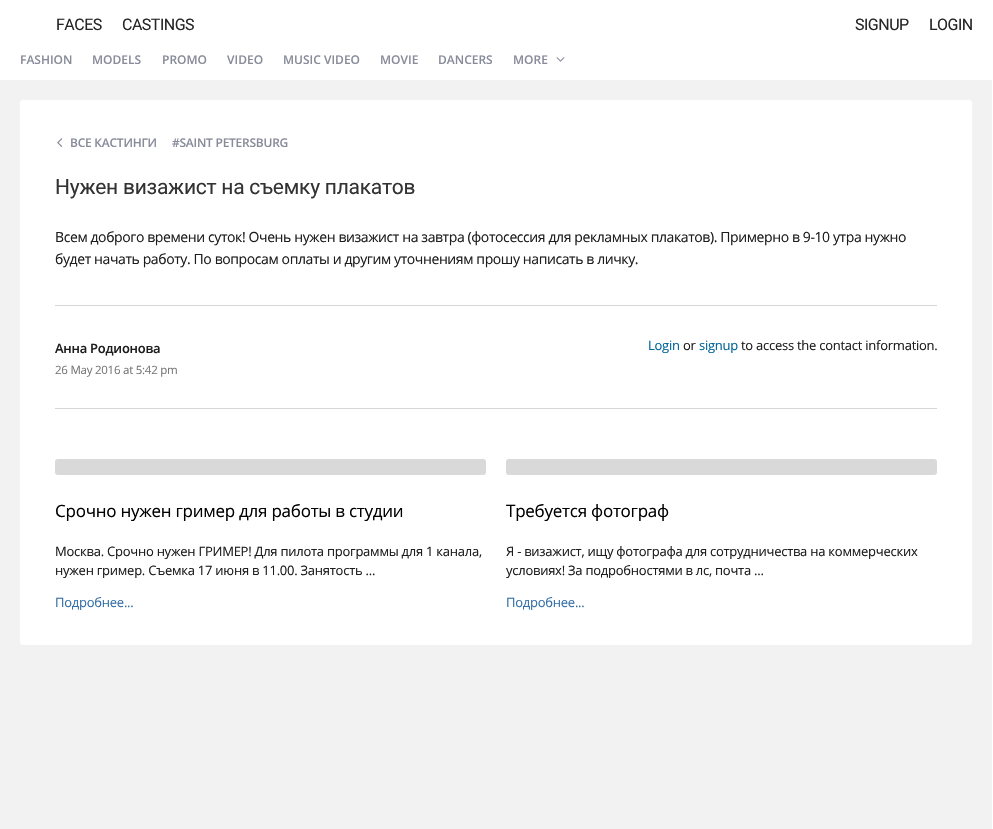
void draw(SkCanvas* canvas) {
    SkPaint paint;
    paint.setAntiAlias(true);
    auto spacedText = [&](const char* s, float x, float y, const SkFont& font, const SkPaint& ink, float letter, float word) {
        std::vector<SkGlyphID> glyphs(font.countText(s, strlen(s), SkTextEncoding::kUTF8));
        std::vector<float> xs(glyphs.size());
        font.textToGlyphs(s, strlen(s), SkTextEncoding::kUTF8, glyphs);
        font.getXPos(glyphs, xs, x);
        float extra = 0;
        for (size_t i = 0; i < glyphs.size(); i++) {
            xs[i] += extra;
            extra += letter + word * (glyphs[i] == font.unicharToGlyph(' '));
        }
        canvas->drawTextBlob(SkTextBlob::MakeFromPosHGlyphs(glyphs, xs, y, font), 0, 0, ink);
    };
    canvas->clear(0xFFFFFFFF);
    SkFont font1(fontMgr->matchFamilyStyle("Roboto", SkFontStyle::Normal()), 16);
    font1.setSubpixel(true);
    paint.setColor(0xFF262626);
    spacedText("FACES", 56, 30, font1, paint, -0.5f, 0);
    spacedText("CASTINGS", 122, 30, font1, paint, -0.5f, 0);
    spacedText("SIGNUP", 855, 30, font1, paint, -0.5f, 0);
    spacedText("LOGIN", 929, 30, font1, paint, -0.5f, 0);
    SkFont font2(fontMgr->matchFamilyStyle("Open Sans", SkFontStyle(600, SkFontStyle::kNormal_Width, SkFontStyle::kUpright_Slant)), 12);
    font2.setSubpixel(true);
    paint.setColor(0xFF888B9A);
    canvas->drawString("FASHION", 20, 64, font2, paint);
    canvas->drawString("MODELS", 92, 64, font2, paint);
    canvas->drawString("PROMO", 162, 64, font2, paint);
    canvas->drawString("VIDEO", 227, 64, font2, paint);
    canvas->drawString("MUSIC VIDEO", 283, 64, font2, paint);
    canvas->drawString("MOVIE", 380, 64, font2, paint);
    canvas->drawString("DANCERS", 438, 64, font2, paint);
    canvas->drawString("MORE", 513, 64, font2, paint);
    canvas->drawImageRect(SkImages::DeferredFromEncodedData(SkData::MakeFromFileName("img1.png")), SkRect::MakeXYWH(556, 57, 9, 5), SkSamplingOptions());
    paint.setColor(0xFFF2F2F2);
    canvas->drawRect(SkRect::MakeXYWH(0, 80, 992, 749), paint);
    paint.setColor(0xFFFFFFFF);
    canvas->drawRoundRect(SkRect::MakeXYWH(20, 100, 952, 545), 3, 3, paint);
    canvas->drawImageRect(SkImages::DeferredFromEncodedData(SkData::MakeFromFileName("img2.png")), SkRect::MakeXYWH(57, 138, 6, 9), SkSamplingOptions());
    paint.setColor(0xFF888B9A);
    spacedText("ВСЕ КАСТИНГИ", 70, 147, font2, paint, -0.25f, 0);
    spacedText("#SAINT PETERSBURG", 172, 147, font2, paint, -0.25f, 0);
    SkFont font3(fontMgr->matchFamilyStyle("Roboto", SkFontStyle::Normal()), 21);
    font3.setSubpixel(true);
    paint.setColor(0xFF333333);
    spacedText("Нужен визажист на съемку плакатов", 55, 194, font3, paint, -0.25f, 0);
    SkFont font4(fontMgr->matchFamilyStyle("Open Sans", SkFontStyle::Normal()), 14);
    font4.setSubpixel(true);
    paint.setColor(0xFF1D1D1E);
    spacedText("Всем доброго времени суток! Очень нужен визажист на завтра (фотосессия для рекламных плакатов). Примерно в 9-10 утра нужно", 55, 242, font4, paint, -0.4f, 0);
    spacedText("будет начать работу. По вопросам оплаты и другим уточнениям прошу написать в личку.", 55, 264, font4, paint, -0.4f, 0);
    paint.setColor(0xFFD6D6D6);
    canvas->drawRect(SkRect::MakeXYWH(55, 305, 882, 1), paint);
    SkFont font5(fontMgr->matchFamilyStyle("Open Sans", SkFontStyle(600, SkFontStyle::kNormal_Width, SkFontStyle::kUpright_Slant)), 13);
    font5.setSubpixel(true);
    paint.setColor(0xFF1D1D1E);
    spacedText("Анна Родионова", 55, 353, font5, paint, -0.25f, 0);
    SkFont font6(fontMgr->matchFamilyStyle("Open Sans", SkFontStyle::Normal()), 11.5f);
    font6.setSubpixel(true);
    paint.setColor(0xFF777777);
    spacedText("26 May 2016 at 5:42 pm", 55, 374, font6, paint, -0.25f, 0);
    SkFont font7(fontMgr->matchFamilyStyle("Open Sans", SkFontStyle::Normal()), 13);
    font7.setSubpixel(true);
    paint.setColor(0xFF006598);
    spacedText("Login", 648, 350, font7, paint, -0.25f, 0);
    paint.setColor(0xFF1D1D1E);
    spacedText("or", 683, 350, font7, paint, -0.25f, 0);
    paint.setColor(0xFF006598);
    spacedText("signup", 699, 350, font7, paint, -0.25f, 0);
    paint.setColor(0xFF1D1D1E);
    spacedText("to access the contact information.", 741, 350, font7, paint, -0.25f, 0);
    paint.setColor(0xFFD6D6D6);
    canvas->drawRect(SkRect::MakeXYWH(55, 408, 882, 1), paint);
    paint.setColor(0xFFD9D9D9);
    canvas->drawRoundRect(SkRect::MakeXYWH(55, 459, 431, 16), 3, 3, paint);
    SkFont font8(fontMgr->matchFamilyStyle("Open Sans", SkFontStyle::Normal()), 17);
    font8.setSubpixel(true);
    paint.setColor(0xFF000000);
    spacedText("Срочно нужен гример для работы в студии", 55, 517, font8, paint, -0.25f, 0);
    paint.setColor(0xFF1D1D1E);
    spacedText("Москва. Срочно нужен ГРИМЕР! Для пилота программы для 1 канала,", 55, 556, font7, paint, -0.25f, 0);
    spacedText("нужен гример. Съемка 17 июня в 11.00. Занятость ...", 55, 575, font7, paint, -0.25f, 0);
    paint.setColor(0xFF336FA8);
    spacedText("Подробнее...", 55, 607, font7, paint, -0.25f, 0);
    paint.setColor(0xFFD9D9D9);
    canvas->drawRoundRect(SkRect::MakeXYWH(506, 459, 431, 16), 3, 3, paint);
    paint.setColor(0xFF000000);
    spacedText("Требуется фотограф", 506, 517, font8, paint, -0.25f, 0);
    paint.setColor(0xFF1D1D1E);
    spacedText("Я - визажист, ищу фотографа для сотрудничества на коммерческих", 506, 556, font7, paint, -0.25f, 0);
    spacedText("условиях! За подробностями в лс, почта ...", 506, 575, font7, paint, -0.25f, 0);
    paint.setColor(0xFF336FA8);
    spacedText("Подробнее...", 506, 607, font7, paint, -0.25f, 0);
}
